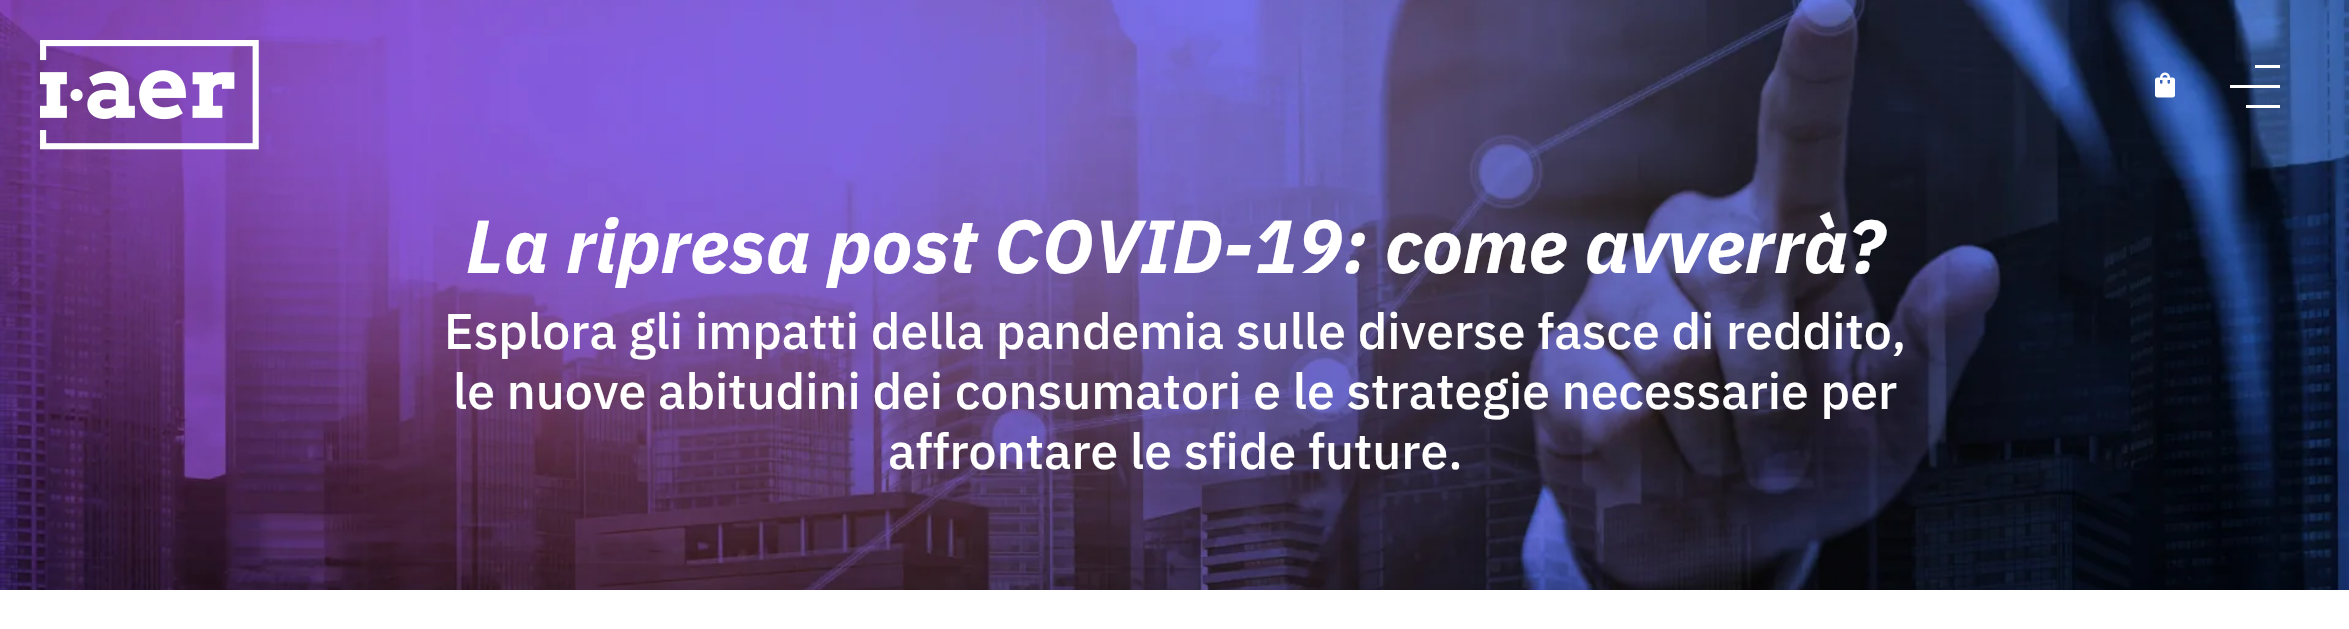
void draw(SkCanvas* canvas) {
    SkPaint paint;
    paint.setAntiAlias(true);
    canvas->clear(0xFFFFFFFF);
    canvas->drawImageRect(SkImages::DeferredFromEncodedData(SkData::MakeFromFileName("img3.png")), SkRect::MakeXYWH(0, 0, 2349, 590), SkSamplingOptions());
    canvas->drawImageRect(SkImages::DeferredFromEncodedData(SkData::MakeFromFileName("img1.png")), SkRect::MakeXYWH(40, 40, 219, 110), SkSamplingOptions());
    canvas->drawImageRect(SkImages::DeferredFromEncodedData(SkData::MakeFromFileName("img2.png")), SkRect::MakeXYWH(2155, 72, 20, 26), SkSamplingOptions());
    paint.setColor(0xFFFFFFFF);
    canvas->drawRect(SkRect::MakeXYWH(2230, 85, 50, 3), paint);
    canvas->drawRect(SkRect::MakeXYWH(2255, 65, 25, 3), paint);
    canvas->drawRect(SkRect::MakeXYWH(2246, 105, 34, 3), paint);
    SkFont font1(fontMgr->matchFamilyStyle("IBM Plex Sans", SkFontStyle::BoldItalic()), 75);
    font1.setSubpixel(true);
    canvas->drawString("La ripresa post COVID-19: come avverrà?", 466, 273, font1, paint);
    SkFont font2(fontMgr->matchFamilyStyle("IBM Plex Sans", SkFontStyle(500, SkFontStyle::kNormal_Width, SkFontStyle::kUpright_Slant)), 50);
    font2.setSubpixel(true);
    canvas->drawString("Esplora gli impatti della pandemia sulle diverse fasce di reddito,", 444, 349, font2, paint);
    canvas->drawString("le nuove abitudini dei consumatori e le strategie necessarie per", 453, 409, font2, paint);
    canvas->drawString("affrontare le sfide future.", 888, 469, font2, paint);
}
